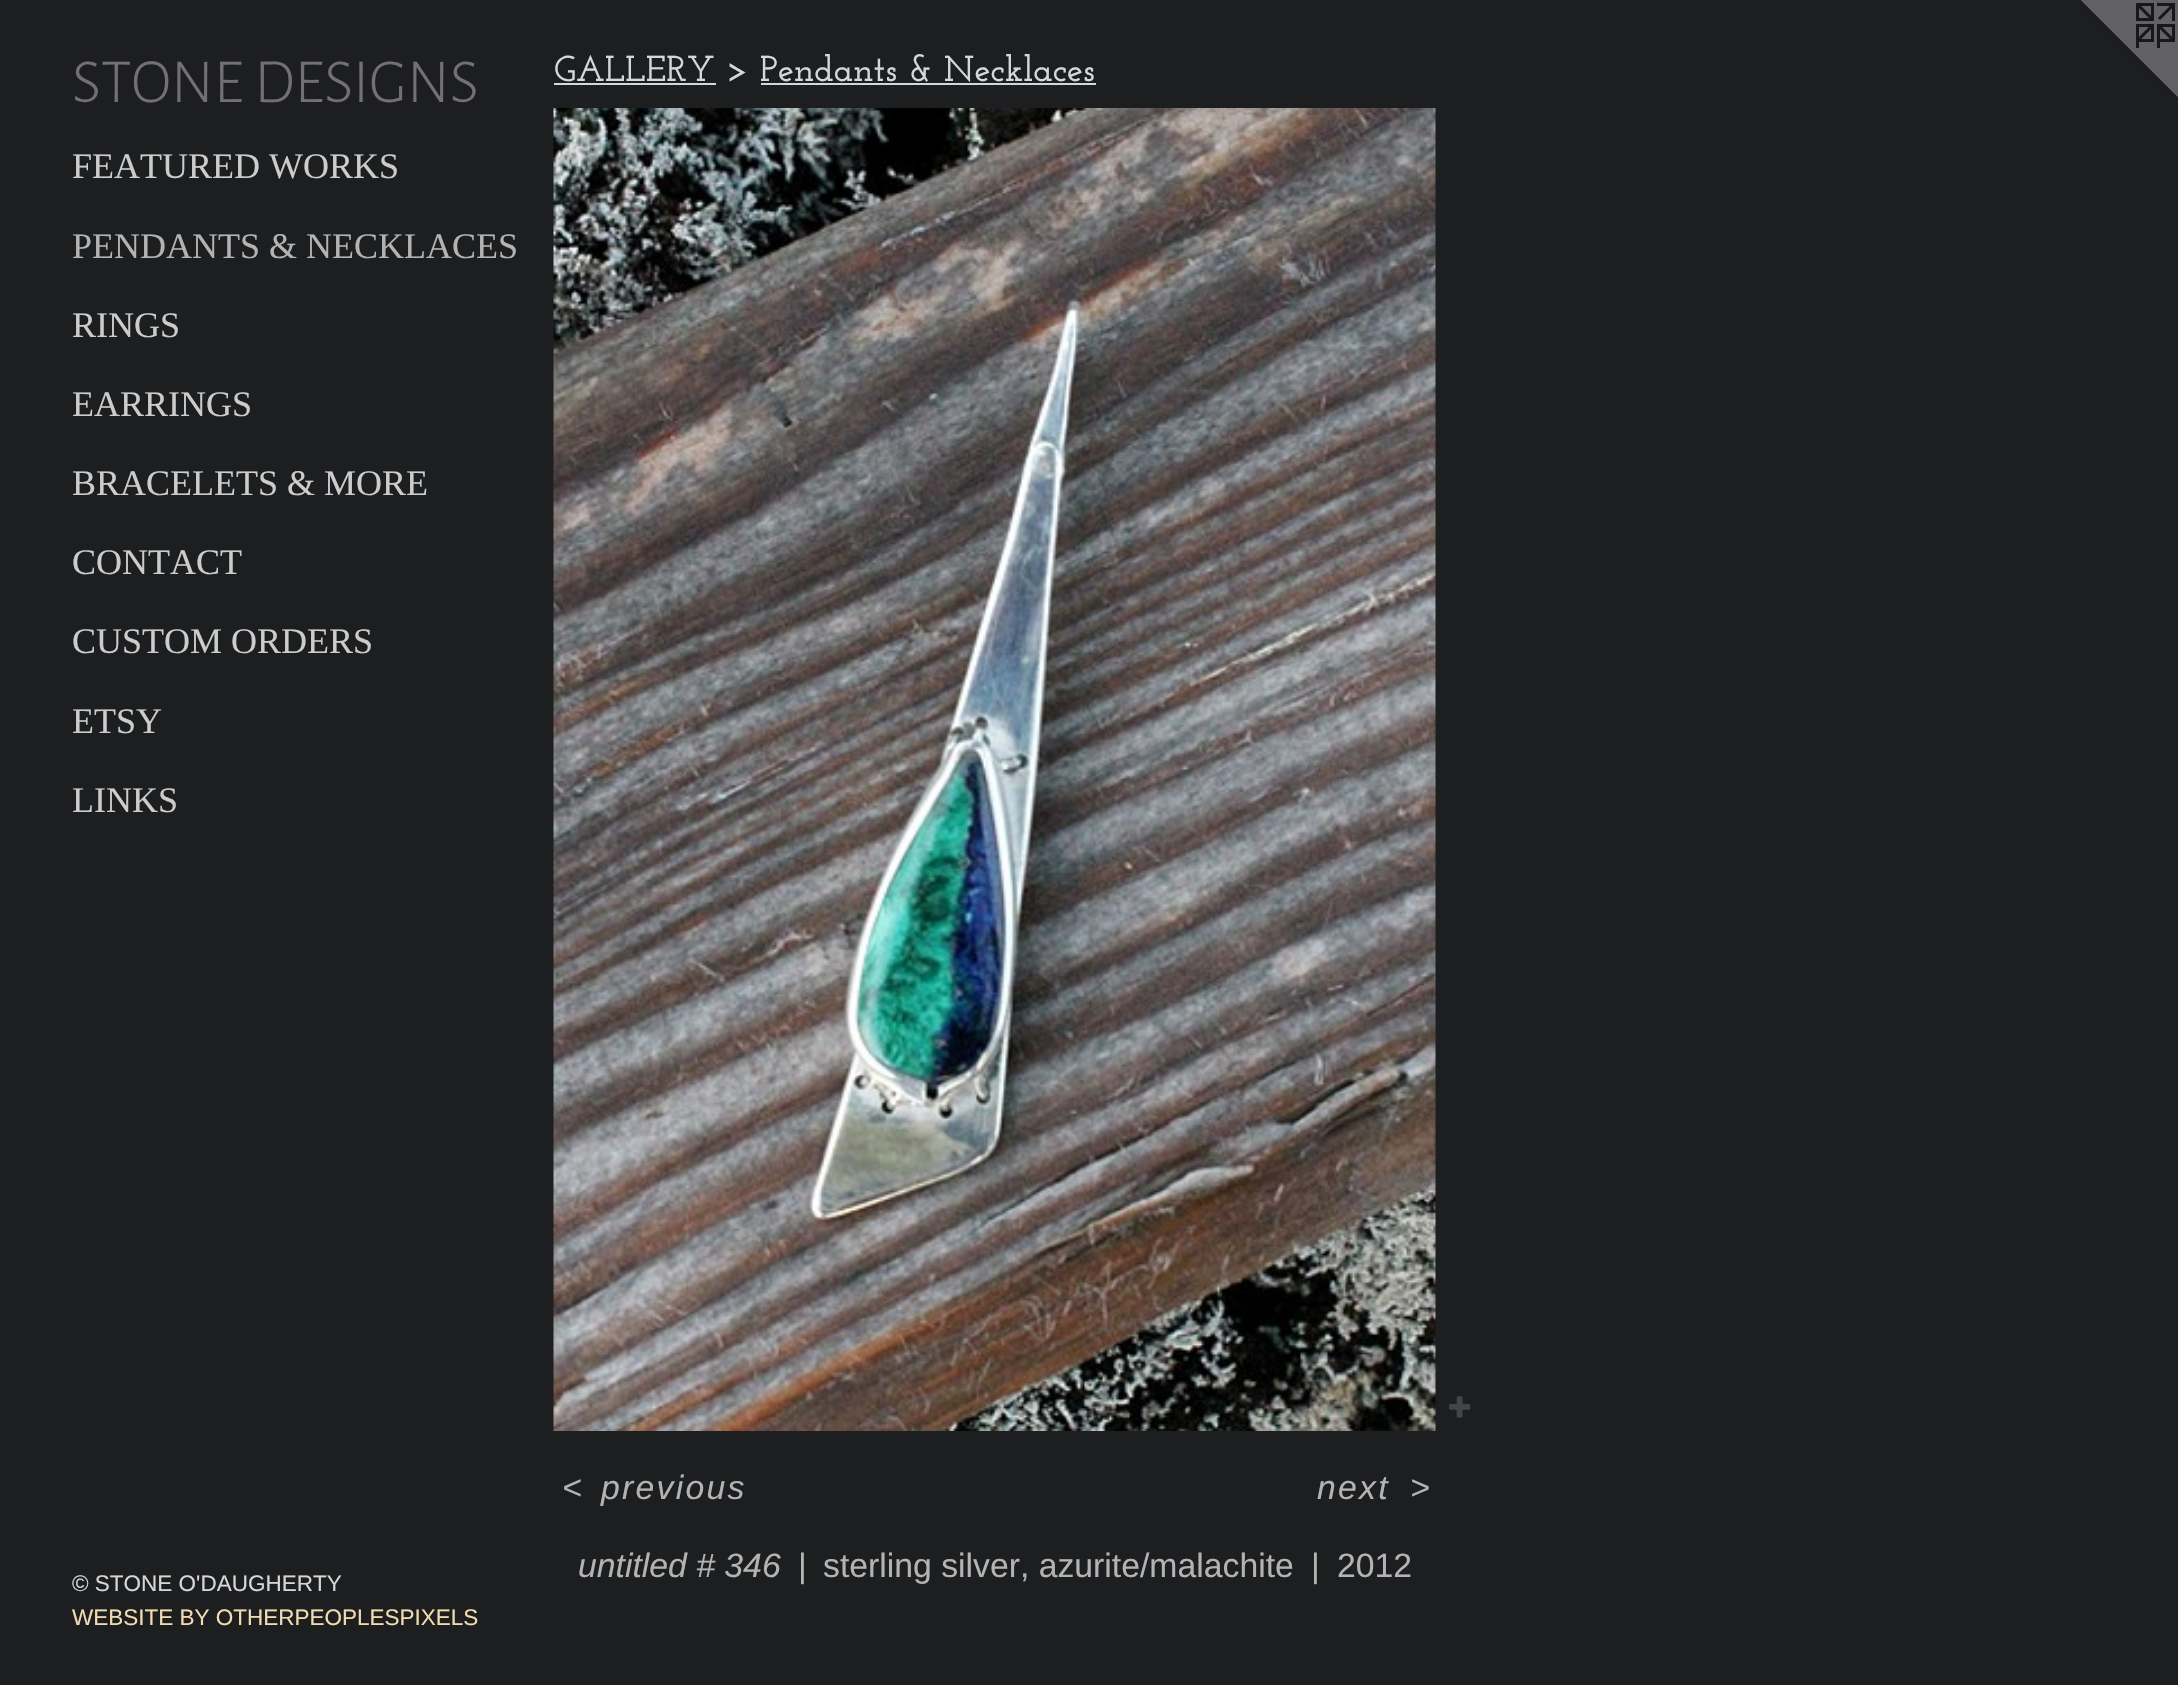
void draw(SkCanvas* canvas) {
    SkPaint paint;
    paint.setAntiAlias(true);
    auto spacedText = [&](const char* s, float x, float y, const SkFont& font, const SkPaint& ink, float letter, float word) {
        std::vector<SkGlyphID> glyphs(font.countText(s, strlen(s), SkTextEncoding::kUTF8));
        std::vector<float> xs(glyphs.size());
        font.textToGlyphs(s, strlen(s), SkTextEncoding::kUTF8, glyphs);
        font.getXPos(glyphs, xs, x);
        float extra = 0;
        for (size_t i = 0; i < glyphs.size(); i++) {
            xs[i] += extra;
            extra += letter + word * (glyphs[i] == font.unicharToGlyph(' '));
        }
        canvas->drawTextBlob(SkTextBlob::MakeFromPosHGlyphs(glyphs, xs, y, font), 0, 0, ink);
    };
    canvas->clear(0xFF1D1E20);
    SkFont font1(fontMgr->matchFamilyStyle("Alegreya Sans SC", SkFontStyle(300, SkFontStyle::kNormal_Width, SkFontStyle::kUpright_Slant)), 63);
    font1.setSubpixel(true);
    paint.setColor(0xFF737075);
    canvas->drawString("STONE DESIGNS", 72, 102, font1, paint);
    SkFont font2(fontMgr->matchFamilyStyle("Liberation Serif", SkFontStyle::Normal()), 36);
    font2.setSubpixel(true);
    paint.setColor(0xFFCCCCCC);
    canvas->drawString("FEATURED WORKS", 72, 178, font2, paint);
    paint.setColor(0xFFB3B3B3);
    canvas->drawString("PENDANTS & NECKLACES", 72, 258, font2, paint);
    paint.setColor(0xFFCCCCCC);
    canvas->drawString("RINGS", 72, 337, font2, paint);
    canvas->drawString("EARRINGS", 72, 416, font2, paint);
    canvas->drawString("BRACELETS & MORE", 72, 495, font2, paint);
    canvas->drawString("CONTACT", 72, 574, font2, paint);
    canvas->drawString("CUSTOM ORDERS", 72, 653, font2, paint);
    canvas->drawString("ETSY", 72, 733, font2, paint);
    canvas->drawString("LINKS", 72, 812, font2, paint);
    SkFont font3(fontMgr->matchFamilyStyle("Liberation Sans", SkFontStyle::Normal()), 22.5f);
    font3.setSubpixel(true);
    paint.setColor(0xFFD6D6D6);
    canvas->drawString("© STONE O'DAUGHERTY", 72, 1591, font3, paint);
    paint.setColor(0xFFF2DBB0);
    canvas->drawString("WEBSITE BY OTHERPEOPLESPIXELS", 72, 1625, font3, paint);
    SkFont font4(fontMgr->matchFamilyStyle("Josefin Slab", SkFontStyle(100, SkFontStyle::kNormal_Width, SkFontStyle::kUpright_Slant)), 36);
    font4.setSubpixel(true);
    paint.setColor(0xFFD4D8DD);
    canvas->drawString("GALLERY > Pendants & Necklaces", 554, 81, font4, paint);
    canvas->drawRect(SkRect::MakeXYWH(554, 83, 162, 2), paint);
    canvas->drawRect(SkRect::MakeXYWH(761, 83, 335, 2), paint);
    canvas->drawImageRect(SkImages::DeferredFromEncodedData(SkData::MakeFromFileName("img1.png")), SkRect::MakeXYWH(553, 108, 883, 1323), SkSamplingOptions());
    canvas->drawImageRect(SkImages::DeferredFromEncodedData(SkData::MakeFromFileName("img2.png")), SkRect::MakeXYWH(1449, 1396, 22, 22), SkSamplingOptions());
    SkFont font5(fontMgr->matchFamilyStyle("Liberation Sans", SkFontStyle::Italic()), 33.75f);
    font5.setSubpixel(true);
    paint.setColor(0xFFB3B3B3);
    spacedText("<", 562, 1499, font5, paint, 2.25f, 0);
    spacedText("previous", 601, 1499, font5, paint, 2.25f, 0);
    spacedText("next", 1317, 1499, font5, paint, 2.25f, 0);
    spacedText(">", 1410, 1499, font5, paint, 2.25f, 0);
    canvas->drawString("untitled # 346", 578, 1577, font5, paint);
    SkFont font6(fontMgr->matchFamilyStyle("Liberation Sans", SkFontStyle::Normal()), 33.75f);
    font6.setSubpixel(true);
    canvas->drawString("|", 798, 1577, font6, paint);
    canvas->drawString("sterling silver, azurite/malachite", 823, 1577, font6, paint);
    canvas->drawString("|", 1311, 1577, font6, paint);
    canvas->drawString("2012", 1337, 1577, font6, paint);
    canvas->drawImageRect(SkImages::DeferredFromEncodedData(SkData::MakeFromFileName("img3.png")), SkRect::MakeXYWH(2081, 0, 97, 97), SkSamplingOptions());
}
